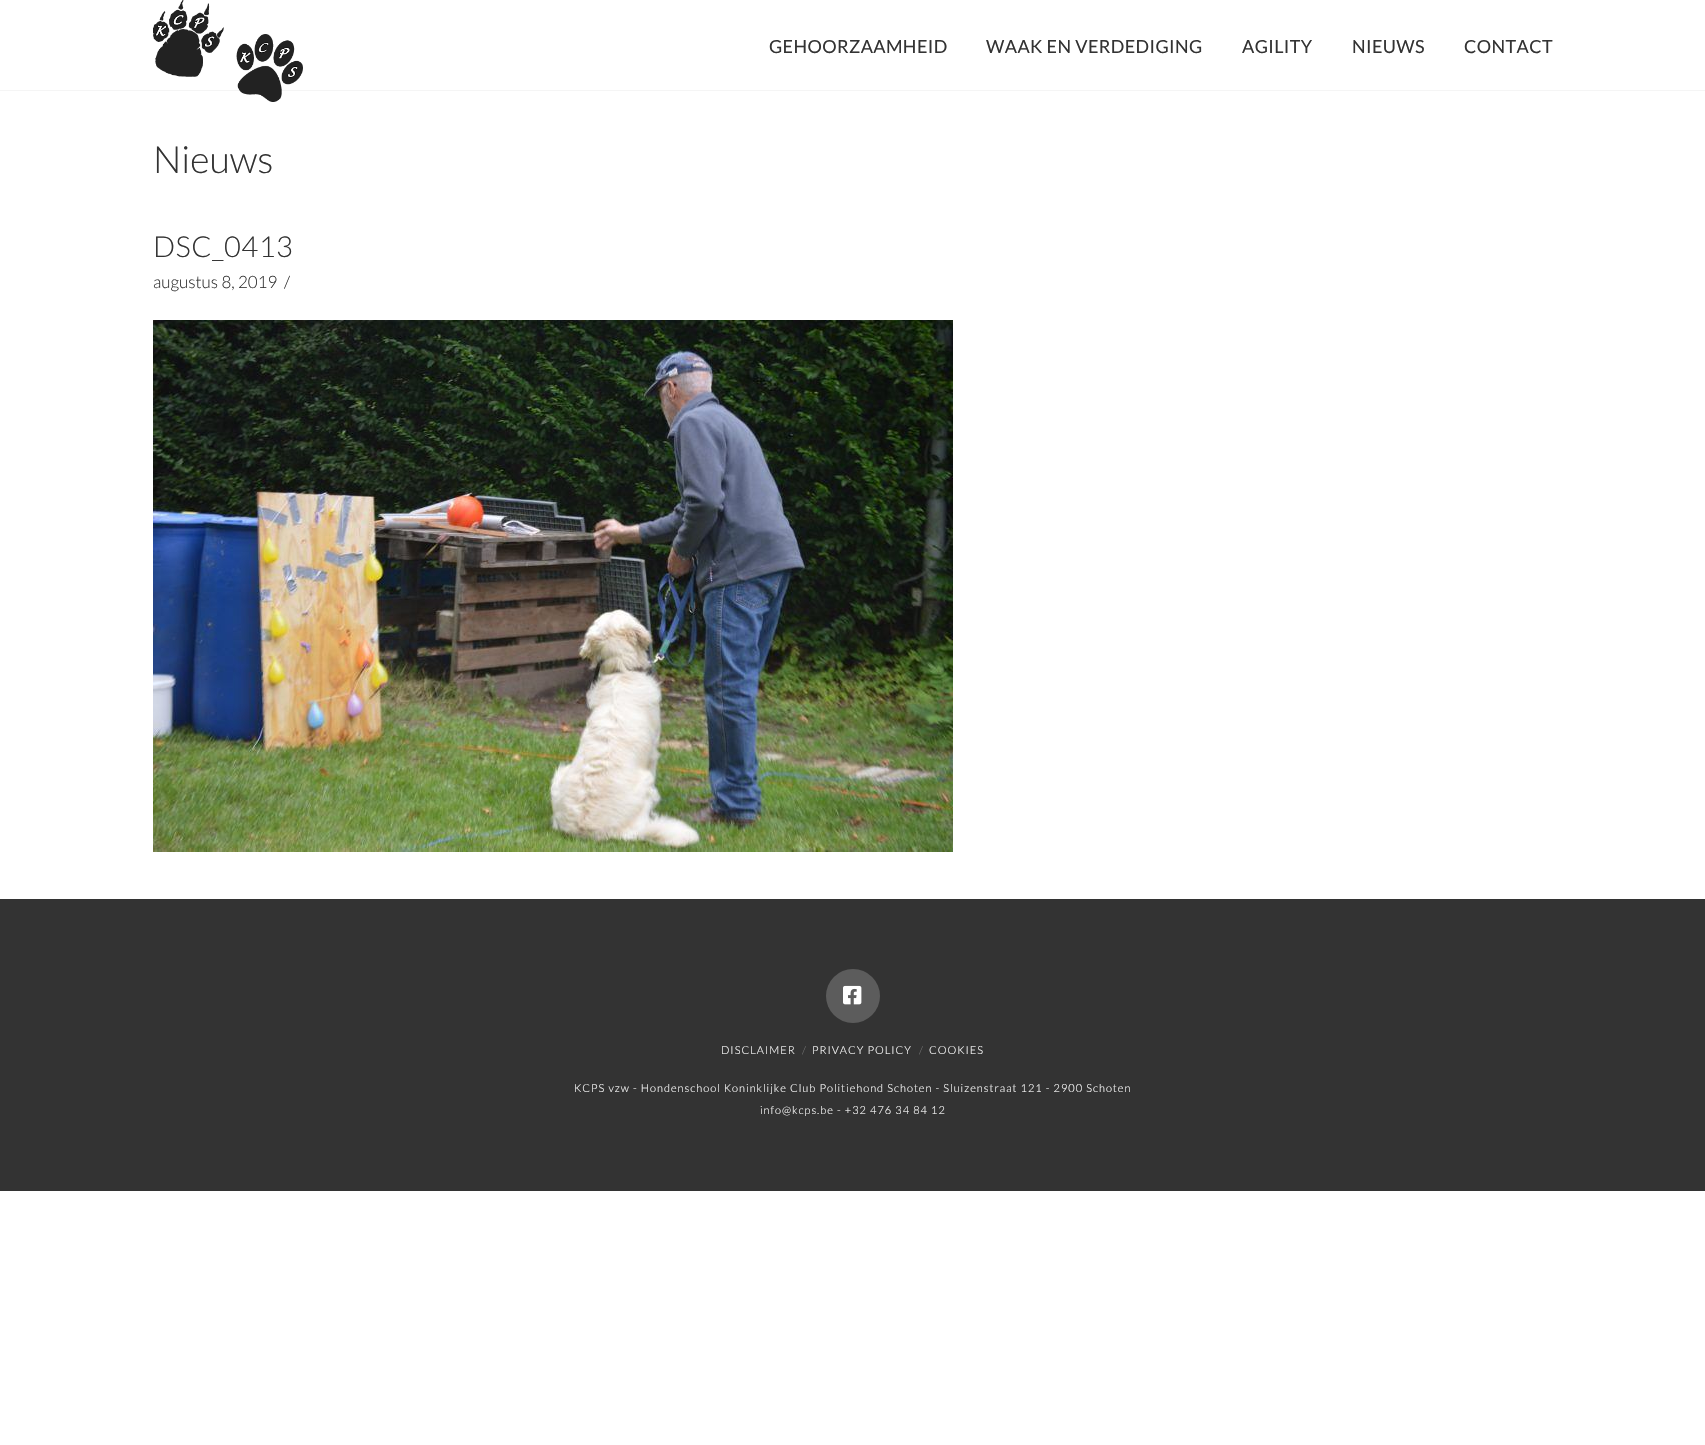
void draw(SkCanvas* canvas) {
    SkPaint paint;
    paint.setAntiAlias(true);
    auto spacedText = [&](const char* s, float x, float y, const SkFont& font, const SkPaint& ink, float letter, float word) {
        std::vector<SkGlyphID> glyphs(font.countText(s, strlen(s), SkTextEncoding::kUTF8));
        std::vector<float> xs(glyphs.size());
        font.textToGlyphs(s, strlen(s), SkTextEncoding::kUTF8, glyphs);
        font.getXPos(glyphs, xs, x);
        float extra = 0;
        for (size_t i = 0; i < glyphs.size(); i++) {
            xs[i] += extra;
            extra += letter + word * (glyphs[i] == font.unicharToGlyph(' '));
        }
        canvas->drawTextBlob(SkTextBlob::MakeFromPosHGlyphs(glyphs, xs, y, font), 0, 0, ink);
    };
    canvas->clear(0xFFFFFFFF);
    paint.setColor(0xFFF5F5F5);
    canvas->drawRect(SkRect::MakeXYWH(0, 90, 1705, 1), paint);
    canvas->drawImageRect(SkImages::DeferredFromEncodedData(SkData::MakeFromFileName("img1.png")), SkRect::MakeXYWH(153, 0, 150, 102), SkSamplingOptions());
    SkFont font1(fontMgr->matchFamilyStyle("Lato", SkFontStyle::Normal()), 18);
    font1.setSubpixel(true);
    paint.setColor(0xFF333333);
    spacedText("GEHOORZAAMHEID", 769, 53, font1, paint, 0.4f, 0);
    spacedText("WAAK EN VERDEDIGING", 986, 53, font1, paint, 0.4f, 0);
    spacedText("AGILITY", 1242, 53, font1, paint, 0.4f, 0);
    spacedText("NIEUWS", 1352, 53, font1, paint, 0.4f, 0);
    spacedText("CONTACT", 1464, 53, font1, paint, 0.4f, 0);
    SkFont font2(fontMgr->matchFamilyStyle("Lato", SkFontStyle(300, SkFontStyle::kNormal_Width, SkFontStyle::kUpright_Slant)), 37.5f);
    font2.setSubpixel(true);
    canvas->drawString("Nieuws", 153, 173, font2, paint);
    SkFont font3(fontMgr->matchFamilyStyle("Lato", SkFontStyle(300, SkFontStyle::kNormal_Width, SkFontStyle::kUpright_Slant)), 29);
    font3.setSubpixel(true);
    spacedText("DSC_0413", 153, 257, font3, paint, 0.5f, 0);
    SkFont font4(fontMgr->matchFamilyStyle("Lato", SkFontStyle(300, SkFontStyle::kNormal_Width, SkFontStyle::kUpright_Slant)), 17);
    font4.setSubpixel(true);
    canvas->drawString("augustus 8, 2019", 153, 288, font4, paint);
    canvas->drawString("/", 284, 288, font4, paint);
    canvas->drawImageRect(SkImages::DeferredFromEncodedData(SkData::MakeFromFileName("img2.png")), SkRect::MakeXYWH(153, 320, 800, 532), SkSamplingOptions());
    canvas->drawRect(SkRect::MakeXYWH(0, 899, 1705, 292), paint);
    paint.setColor(0xFF5C5C5C);
    canvas->drawCircle(853, 996, 27, paint);
    canvas->drawImageRect(SkImages::DeferredFromEncodedData(SkData::MakeFromFileName("img3.png")), SkRect::MakeXYWH(843, 985, 19, 20), SkSamplingOptions());
    SkFont font5(fontMgr->matchFamilyStyle("Lato", SkFontStyle(300, SkFontStyle::kNormal_Width, SkFontStyle::kUpright_Slant)), 11);
    font5.setSubpixel(true);
    paint.setColor(0xFFFFFFFF);
    spacedText("DISCLAIMER", 721, 1054, font5, paint, 1, 0);
    paint.setColor(0xFF7A7A7A);
    canvas->drawString("/", 802, 1054, font5, paint);
    paint.setColor(0xFFFFFFFF);
    spacedText("PRIVACY POLICY", 812, 1054, font5, paint, 1, 0);
    paint.setColor(0xFF7A7A7A);
    canvas->drawString("/", 919, 1054, font5, paint);
    paint.setColor(0xFFFFFFFF);
    spacedText("COOKIES", 929, 1054, font5, paint, 1, 0);
    spacedText("KCPS vzw - Hondenschool Koninklijke Club Politiehond Schoten - Sluizenstraat 121 - 2900 Schoten", 574, 1092, font5, paint, 1, 0);
    spacedText("info@kcps.be - +32 476 34 84 12", 760, 1114, font5, paint, 1, 0);
}
